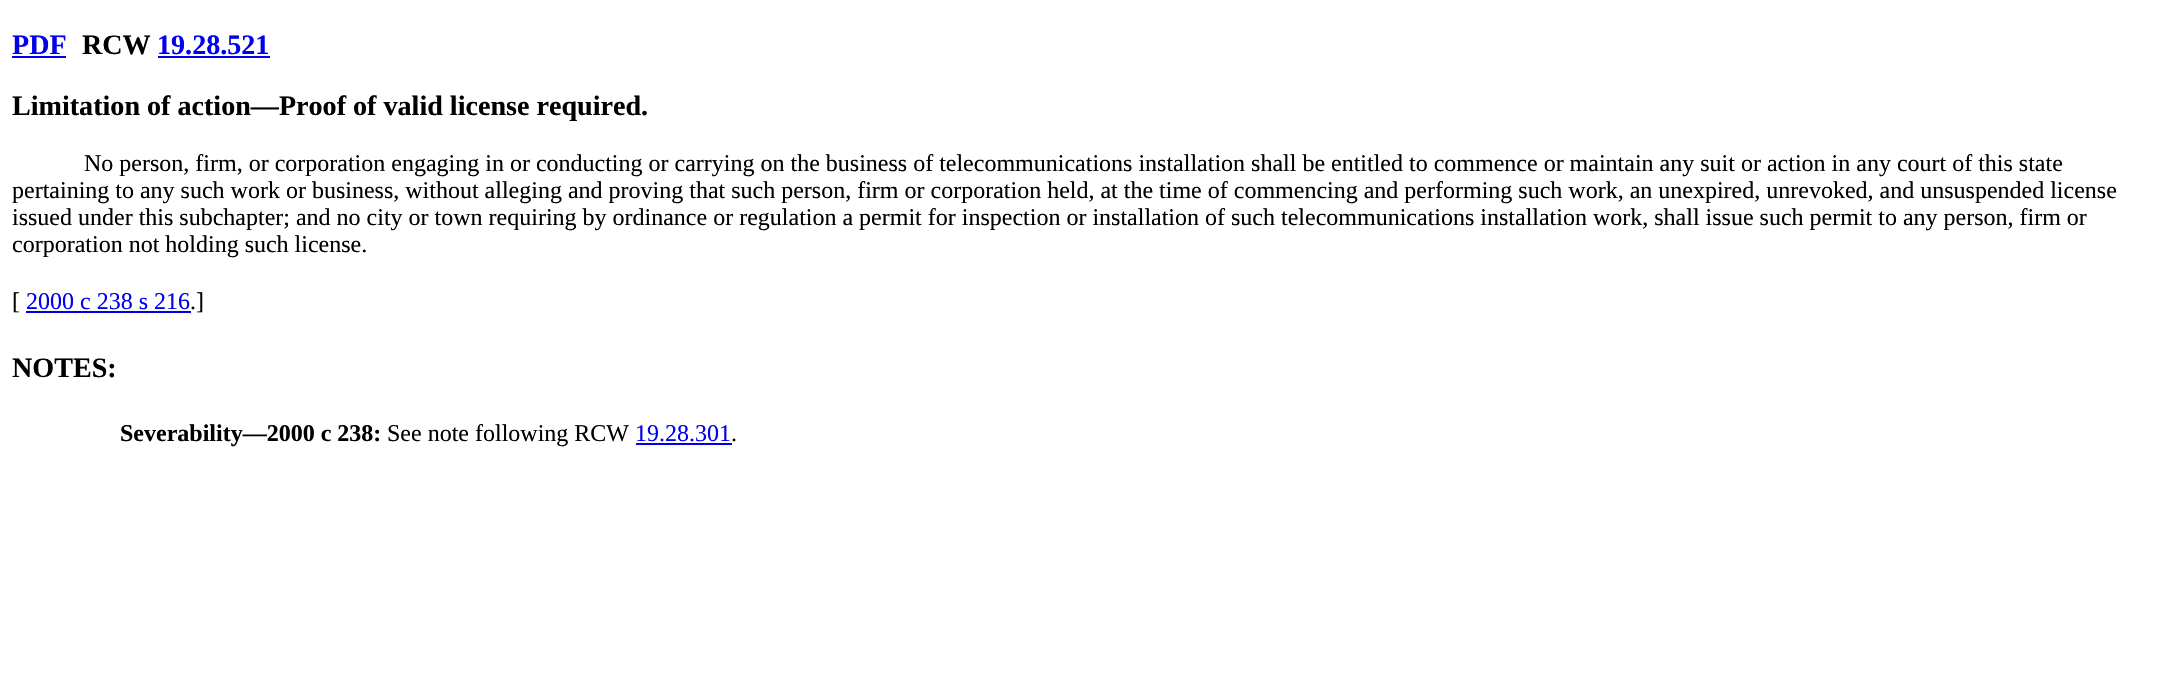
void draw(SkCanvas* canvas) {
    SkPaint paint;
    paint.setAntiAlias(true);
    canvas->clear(0xFFFFFFFF);
    SkFont font1(fontMgr->matchFamilyStyle("Liberation Serif", SkFontStyle::Bold()), 28.1f);
    font1.setSubpixel(true);
    paint.setColor(0xFF0000EE);
    canvas->drawString("PDF", 12, 54, font1, paint);
    canvas->drawRect(SkRect::MakeXYWH(12, 56, 54, 2), paint);
    paint.setColor(0xFF000000);
    canvas->drawString("RCW", 82, 54, font1, paint);
    paint.setColor(0xFF0000EE);
    canvas->drawString("19.28.521", 157, 54, font1, paint);
    canvas->drawRect(SkRect::MakeXYWH(158, 56, 112, 2), paint);
    paint.setColor(0xFF000000);
    canvas->drawString("Limitation of action—Proof of valid license required.", 12, 115, font1, paint);
    SkFont font2(fontMgr->matchFamilyStyle("Liberation Serif", SkFontStyle::Normal()), 24);
    font2.setSubpixel(true);
    canvas->drawString("No person, firm, or corporation engaging in or conducting or carrying on the business of telecommunications installation shall be entitled to commence or maintain any suit or action in any court of this state", 84, 171, font2, paint);
    canvas->drawString("pertaining to any such work or business, without alleging and proving that such person, firm or corporation held, at the time of commencing and performing such work, an unexpired, unrevoked, and unsuspended license", 12, 198, font2, paint);
    canvas->drawString("issued under this subchapter; and no city or town requiring by ordinance or regulation a permit for inspection or installation of such telecommunications installation work, shall issue such permit to any person, firm or", 12, 225, font2, paint);
    canvas->drawString("corporation not holding such license.", 12, 252, font2, paint);
    canvas->drawString("[", 12, 309, font2, paint);
    paint.setColor(0xFF0000EE);
    canvas->drawString("2000 c 238 s 216", 26, 309, font2, paint);
    canvas->drawRect(SkRect::MakeXYWH(26, 311, 165, 2), paint);
    paint.setColor(0xFF000000);
    canvas->drawString(".]", 190, 309, font2, paint);
    canvas->drawString("NOTES:", 12, 377, font1, paint);
    SkFont font3(fontMgr->matchFamilyStyle("Liberation Serif", SkFontStyle::Bold()), 24);
    font3.setSubpixel(true);
    canvas->drawString("Severability—2000 c 238:", 120, 441, font3, paint);
    canvas->drawString("See note following RCW", 387, 441, font2, paint);
    paint.setColor(0xFF0000EE);
    canvas->drawString("19.28.301", 635, 441, font2, paint);
    canvas->drawRect(SkRect::MakeXYWH(636, 443, 96, 2), paint);
    paint.setColor(0xFF000000);
    canvas->drawString(".", 731, 441, font2, paint);
}
